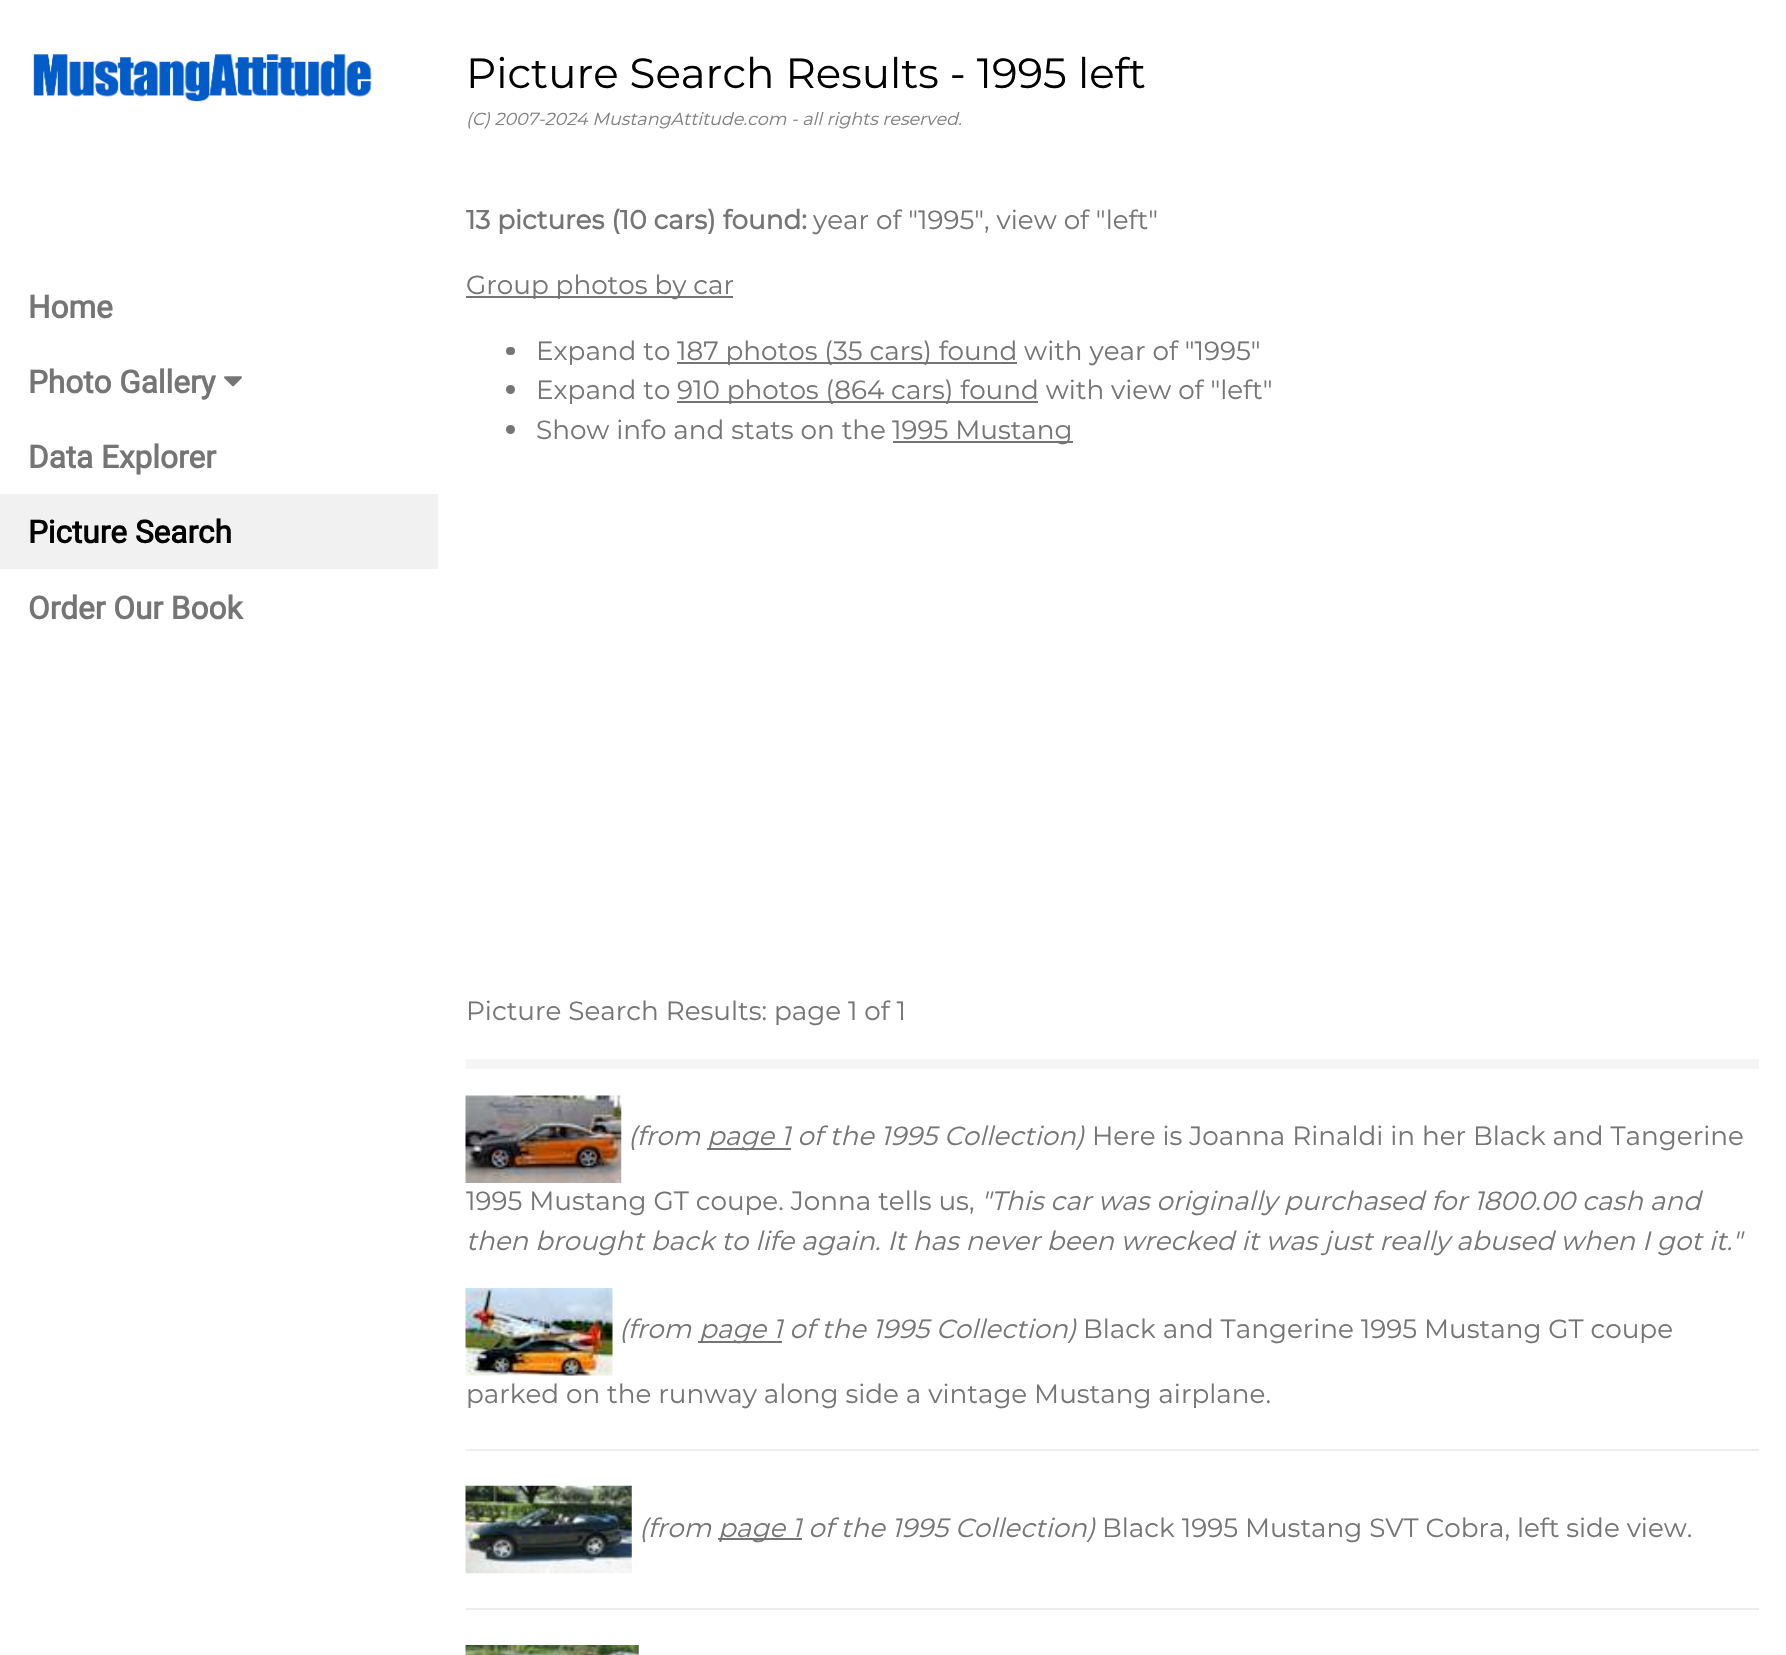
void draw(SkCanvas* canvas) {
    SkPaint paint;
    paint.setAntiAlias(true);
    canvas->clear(0xFFFFFFFF);
    canvas->drawImageRect(SkImages::DeferredFromEncodedData(SkData::MakeFromFileName("img1.png")), SkRect::MakeXYWH(32, 53, 341, 50), SkSamplingOptions());
    SkFont font1(fontMgr->matchFamilyStyle("Roboto", SkFontStyle::Bold()), 31.5f);
    font1.setSubpixel(true);
    paint.setColor(0xFF757575);
    canvas->drawString("Home", 28, 318, font1, paint);
    canvas->drawString("Photo Gallery", 28, 393, font1, paint);
    canvas->drawImageRect(SkImages::DeferredFromEncodedData(SkData::MakeFromFileName("img2.png")), SkRect::MakeXYWH(224, 376, 18, 11), SkSamplingOptions());
    canvas->drawString("Data Explorer", 28, 468, font1, paint);
    paint.setColor(0xFFF1F1F1);
    canvas->drawRect(SkRect::MakeXYWH(0, 494, 438, 75), paint);
    paint.setColor(0xFF000000);
    canvas->drawString("Picture Search", 28, 543, font1, paint);
    paint.setColor(0xFF757575);
    canvas->drawString("Order Our Book", 28, 619, font1, paint);
    SkFont font2(fontMgr->matchFamilyStyle("Montserrat", SkFontStyle(100, SkFontStyle::kNormal_Width, SkFontStyle::kUpright_Slant)), 42);
    font2.setSubpixel(true);
    paint.setColor(0xFF000000);
    canvas->drawString("Picture Search Results - 1995 left", 466, 88, font2, paint);
    SkFont font3(fontMgr->matchFamilyStyle("Montserrat", SkFontStyle(100, SkFontStyle::kNormal_Width, SkFontStyle::kItalic_Slant)), 17.5f);
    font3.setSubpixel(true);
    paint.setColor(0xFF808080);
    canvas->drawString("(C) 2007-2024 MustangAttitude.com - all rights reserved.", 466, 125, font3, paint);
    SkFont font4(fontMgr->matchFamilyStyle("Montserrat", SkFontStyle::Bold()), 26.25f);
    font4.setSubpixel(true);
    paint.setColor(0xFF757575);
    canvas->drawString("13 pictures (10 cars) found:", 466, 229, font4, paint);
    SkFont font5(fontMgr->matchFamilyStyle("Montserrat", SkFontStyle(100, SkFontStyle::kNormal_Width, SkFontStyle::kUpright_Slant)), 26.25f);
    font5.setSubpixel(true);
    canvas->drawString("year of \"1995\", view of \"left\"", 813, 229, font5, paint);
    canvas->drawRect(SkRect::MakeXYWH(466, 296, 267, 2), paint);
    canvas->drawString("Group photos by car", 466, 294, font5, paint);
    canvas->drawRoundRect(SkRect::MakeXYWH(506, 347, 9, 8), 4, 4, paint);
    canvas->drawString("Expand to", 536, 360, font5, paint);
    canvas->drawRect(SkRect::MakeXYWH(677, 362, 340, 2), paint);
    canvas->drawString("187 photos (35 cars) found with year of \"1995\"", 677, 360, font5, paint);
    canvas->drawCircle(510.5f, 389.5f, 4.5f, paint);
    canvas->drawString("Expand to", 536, 399, font5, paint);
    canvas->drawRect(SkRect::MakeXYWH(677, 401, 361, 2), paint);
    canvas->drawString("910 photos (864 cars) found with view of \"left\"", 677, 399, font5, paint);
    canvas->drawCircle(510.5f, 429.5f, 4.5f, paint);
    canvas->drawString("Show info and stats on the", 536, 439, font5, paint);
    canvas->drawRect(SkRect::MakeXYWH(893, 441, 180, 2), paint);
    canvas->drawString("1995 Mustang", 892, 439, font5, paint);
    canvas->drawString("Picture Search Results: page 1 of 1", 466, 1020, font5, paint);
    paint.setColor(0xFFF5F5F5);
    canvas->drawRect(SkRect::MakeXYWH(466, 1059, 1293, 10), paint);
    canvas->drawImageRect(SkImages::DeferredFromEncodedData(SkData::MakeFromFileName("img3.png")), SkRect::MakeXYWH(465, 1095, 157, 88), SkSamplingOptions());
    SkFont font6(fontMgr->matchFamilyStyle("Montserrat", SkFontStyle(100, SkFontStyle::kNormal_Width, SkFontStyle::kItalic_Slant)), 26.25f);
    font6.setSubpixel(true);
    paint.setColor(0xFF757575);
    canvas->drawString("(from", 628, 1145, font6, paint);
    canvas->drawRect(SkRect::MakeXYWH(707, 1148, 84, 2), paint);
    canvas->drawString("page 1 of the 1995 Collection)", 707, 1145, font6, paint);
    canvas->drawString("Here is Joanna Rinaldi in her Black and Tangerine", 1092, 1145, font5, paint);
    canvas->drawString("1995 Mustang GT coupe. Jonna tells us,", 466, 1210, font5, paint);
    canvas->drawString("\"This car was originally purchased for 1800.00 cash and", 981, 1210, font6, paint);
    canvas->drawString("then brought back to life again. It has never been wrecked it was just really abused when I got it.\"", 466, 1250, font6, paint);
    canvas->drawImageRect(SkImages::DeferredFromEncodedData(SkData::MakeFromFileName("img4.png")), SkRect::MakeXYWH(465, 1288, 148, 88), SkSamplingOptions());
    canvas->drawString("(from", 619, 1338, font6, paint);
    canvas->drawRect(SkRect::MakeXYWH(698, 1341, 84, 2), paint);
    canvas->drawString("page 1 of the 1995 Collection)", 699, 1338, font6, paint);
    canvas->drawString("Black and Tangerine 1995 Mustang GT coupe", 1083, 1338, font5, paint);
    canvas->drawString("parked on the runway along side a vintage Mustang airplane.", 466, 1403, font5, paint);
    paint.setColor(0xFFEEEEEE);
    canvas->drawRect(SkRect::MakeXYWH(466, 1449, 1293, 2), paint);
    canvas->drawImageRect(SkImages::DeferredFromEncodedData(SkData::MakeFromFileName("img5.png")), SkRect::MakeXYWH(465, 1485, 167, 89), SkSamplingOptions());
    paint.setColor(0xFF757575);
    canvas->drawString("(from", 639, 1537, font6, paint);
    canvas->drawRect(SkRect::MakeXYWH(718, 1538, 84, 2), paint);
    canvas->drawString("page 1 of the 1995 Collection)", 718, 1537, font6, paint);
    canvas->drawString("Black 1995 Mustang SVT Cobra, left side view.", 1102, 1537, font5, paint);
    paint.setColor(0xFFEEEEEE);
    canvas->drawRect(SkRect::MakeXYWH(466, 1608, 1293, 2), paint);
    canvas->drawImageRect(SkImages::DeferredFromEncodedData(SkData::MakeFromFileName("img6.png")), SkRect::MakeXYWH(465, 1645, 174, 10), SkSamplingOptions());
}
